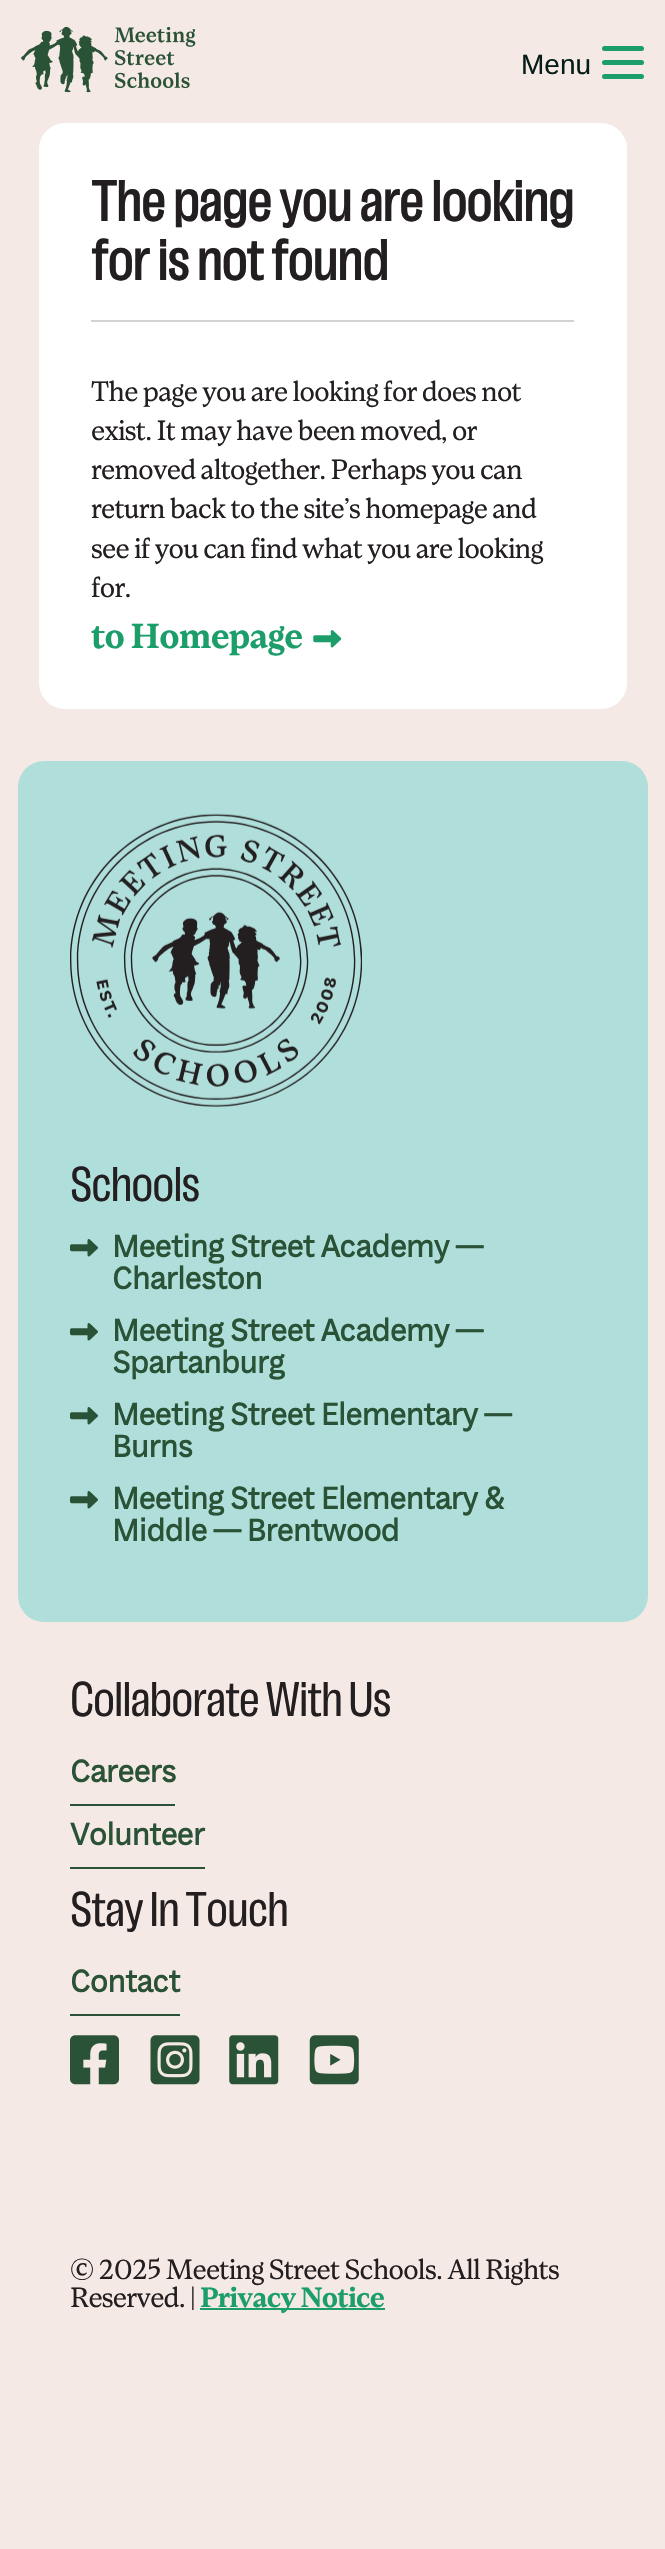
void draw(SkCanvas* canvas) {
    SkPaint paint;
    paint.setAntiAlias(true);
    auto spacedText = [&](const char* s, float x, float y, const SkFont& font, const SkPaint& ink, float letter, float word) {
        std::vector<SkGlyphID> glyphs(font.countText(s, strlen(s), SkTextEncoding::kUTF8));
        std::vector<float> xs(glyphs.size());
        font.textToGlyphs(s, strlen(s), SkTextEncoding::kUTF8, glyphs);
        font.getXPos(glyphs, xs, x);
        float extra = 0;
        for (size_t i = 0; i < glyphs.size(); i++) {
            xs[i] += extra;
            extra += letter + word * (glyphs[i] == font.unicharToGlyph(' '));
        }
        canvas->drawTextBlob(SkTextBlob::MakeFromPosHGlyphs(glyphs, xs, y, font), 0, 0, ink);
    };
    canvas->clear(0xFFF5E9E5);
    canvas->drawImageRect(SkImages::DeferredFromEncodedData(SkData::MakeFromFileName("img1.png")), SkRect::MakeXYWH(21, 26, 175, 67), SkSamplingOptions());
    paint.setColor(0xFF1B9E69);
    canvas->drawRoundRect(SkRect::MakeXYWH(602, 46, 42, 5), 2.5f, 2.5f, paint);
    SkFont font1(fontMgr->matchFamilyStyle("Liberation Sans", SkFontStyle::Normal()), 28);
    font1.setSubpixel(true);
    paint.setColor(0xFF061C18);
    canvas->drawString("Menu", 521, 74, font1, paint);
    paint.setColor(0xFF1B9E69);
    canvas->drawRoundRect(SkRect::MakeXYWH(602, 60, 42, 5), 2.5f, 2.5f, paint);
    canvas->drawRoundRect(SkRect::MakeXYWH(602, 74, 42, 5), 2.5f, 2.5f, paint);
    paint.setColor(0xFFFFFFFF);
    canvas->drawRoundRect(SkRect::MakeXYWH(39, 123, 588, 586), 26, 26, paint);
    paint.setColor(0xFFD3D2D2);
    canvas->drawRect(SkRect::MakeXYWH(91, 320, 483, 2), paint);
    SkFont font2(fontMgr->matchFamilyStyle("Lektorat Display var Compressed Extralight", SkFontStyle::Bold()), 49);
    font2.setSubpixel(true);
    paint.setColor(0xFF231F20);
    spacedText("The page you are looking", 91, 221, font2, paint, -0.7f, 0);
    spacedText("for is not found", 91, 280, font2, paint, -0.7f, 0);
    SkFont font3(fontMgr->matchFamilyStyle("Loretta", SkFontStyle::Normal()), 28);
    font3.setSubpixel(true);
    spacedText("The page you are looking for does not", 91, 401, font3, paint, -0.7f, 0);
    spacedText("exist. It may have been moved, or", 91, 440, font3, paint, -0.7f, 0);
    spacedText("removed altogether. Perhaps you can", 91, 479, font3, paint, -0.7f, 0);
    spacedText("return back to the site’s homepage and", 91, 518, font3, paint, -0.7f, 0);
    spacedText("see if you can find what you are looking", 91, 558, font3, paint, -0.7f, 0);
    spacedText("for.", 91, 597, font3, paint, -0.7f, 0);
    SkFont font4(fontMgr->matchFamilyStyle("Loretta", SkFontStyle::Bold()), 35);
    font4.setSubpixel(true);
    paint.setColor(0xFF1B9E69);
    spacedText("to Homepage", 91, 648, font4, paint, -0.7f, 0);
    canvas->drawImageRect(SkImages::DeferredFromEncodedData(SkData::MakeFromFileName("img2.png")), SkRect::MakeXYWH(313, 630, 29, 18), SkSamplingOptions());
    paint.setColor(0xFFB0DFDB);
    canvas->drawRoundRect(SkRect::MakeXYWH(18, 761, 630, 861), 26, 26, paint);
    canvas->drawImageRect(SkImages::DeferredFromEncodedData(SkData::MakeFromFileName("img3.png")), SkRect::MakeXYWH(70, 813, 292, 294), SkSamplingOptions());
    SkFont font5(fontMgr->matchFamilyStyle("Lektorat Display var Compressed Extralight", SkFontStyle::Normal()), 42);
    font5.setSubpixel(true);
    paint.setColor(0xFF231F20);
    spacedText("Schools", 70, 1201, font5, paint, -1.1f, 0);
    canvas->drawImageRect(SkImages::DeferredFromEncodedData(SkData::MakeFromFileName("img4.png")), SkRect::MakeXYWH(70, 1239, 28, 18), SkSamplingOptions());
    SkFont font6(fontMgr->matchFamilyStyle("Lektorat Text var", SkFontStyle::Bold()), 31.5f);
    font6.setSubpixel(true);
    paint.setColor(0xFF2A5236);
    spacedText("Meeting Street Academy —", 112, 1257, font6, paint, -0.7f, 0);
    spacedText("Charleston", 112, 1289, font6, paint, -0.7f, 0);
    canvas->drawImageRect(SkImages::DeferredFromEncodedData(SkData::MakeFromFileName("img4.png")), SkRect::MakeXYWH(70, 1323, 28, 18), SkSamplingOptions());
    spacedText("Meeting Street Academy —", 112, 1341, font6, paint, -0.7f, 0);
    spacedText("Spartanburg", 112, 1373, font6, paint, -0.7f, 0);
    canvas->drawImageRect(SkImages::DeferredFromEncodedData(SkData::MakeFromFileName("img4.png")), SkRect::MakeXYWH(70, 1407, 28, 18), SkSamplingOptions());
    spacedText("Meeting Street Elementary —", 112, 1425, font6, paint, -0.7f, 0);
    spacedText("Burns", 112, 1457, font6, paint, -0.7f, 0);
    canvas->drawImageRect(SkImages::DeferredFromEncodedData(SkData::MakeFromFileName("img4.png")), SkRect::MakeXYWH(70, 1491, 28, 18), SkSamplingOptions());
    spacedText("Meeting Street Elementary &", 112, 1509, font6, paint, -0.7f, 0);
    spacedText("Middle — Brentwood", 112, 1541, font6, paint, -0.7f, 0);
    paint.setColor(0xFF231F20);
    spacedText("Collaborate With Us", 70, 1716, font5, paint, -1.1f, 0);
    paint.setColor(0xFF2A5236);
    spacedText("Careers", 70, 1782, font6, paint, -0.7f, 0);
    canvas->drawRect(SkRect::MakeXYWH(70, 1804, 105, 2), paint);
    spacedText("Volunteer", 70, 1845, font6, paint, -0.7f, 0);
    canvas->drawRect(SkRect::MakeXYWH(70, 1867, 135, 2), paint);
    paint.setColor(0xFF231F20);
    spacedText("Stay In Touch", 70, 1926, font5, paint, -1.1f, 0);
    paint.setColor(0xFF2A5236);
    spacedText("Contact", 70, 1992, font6, paint, -0.7f, 0);
    canvas->drawRect(SkRect::MakeXYWH(70, 2014, 110, 2), paint);
    canvas->drawImageRect(SkImages::DeferredFromEncodedData(SkData::MakeFromFileName("img5.png")), SkRect::MakeXYWH(70, 2035, 49, 50), SkSamplingOptions());
    canvas->drawImageRect(SkImages::DeferredFromEncodedData(SkData::MakeFromFileName("img6.png")), SkRect::MakeXYWH(150, 2035, 50, 50), SkSamplingOptions());
    canvas->drawImageRect(SkImages::DeferredFromEncodedData(SkData::MakeFromFileName("img7.png")), SkRect::MakeXYWH(229, 2035, 50, 50), SkSamplingOptions());
    canvas->drawImageRect(SkImages::DeferredFromEncodedData(SkData::MakeFromFileName("img8.png")), SkRect::MakeXYWH(309, 2035, 50, 50), SkSamplingOptions());
    SkFont font7(fontMgr->matchFamilyStyle("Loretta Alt", SkFontStyle::Normal()), 28);
    font7.setSubpixel(true);
    paint.setColor(0xFF231F20);
    spacedText("© 2025 Meeting Street Schools. All Rights", 70, 2279, font7, paint, -0.7f, 0);
    spacedText("Reserved. |", 70, 2307, font3, paint, -0.7f, 0);
    paint.setColor(0xFF1B9E69);
    canvas->drawRect(SkRect::MakeXYWH(200, 2308, 185, 2), paint);
    SkFont font8(fontMgr->matchFamilyStyle("Loretta", SkFontStyle::Bold()), 28);
    font8.setSubpixel(true);
    spacedText("Privacy Notice", 200, 2307, font8, paint, -0.7f, 0);
}
